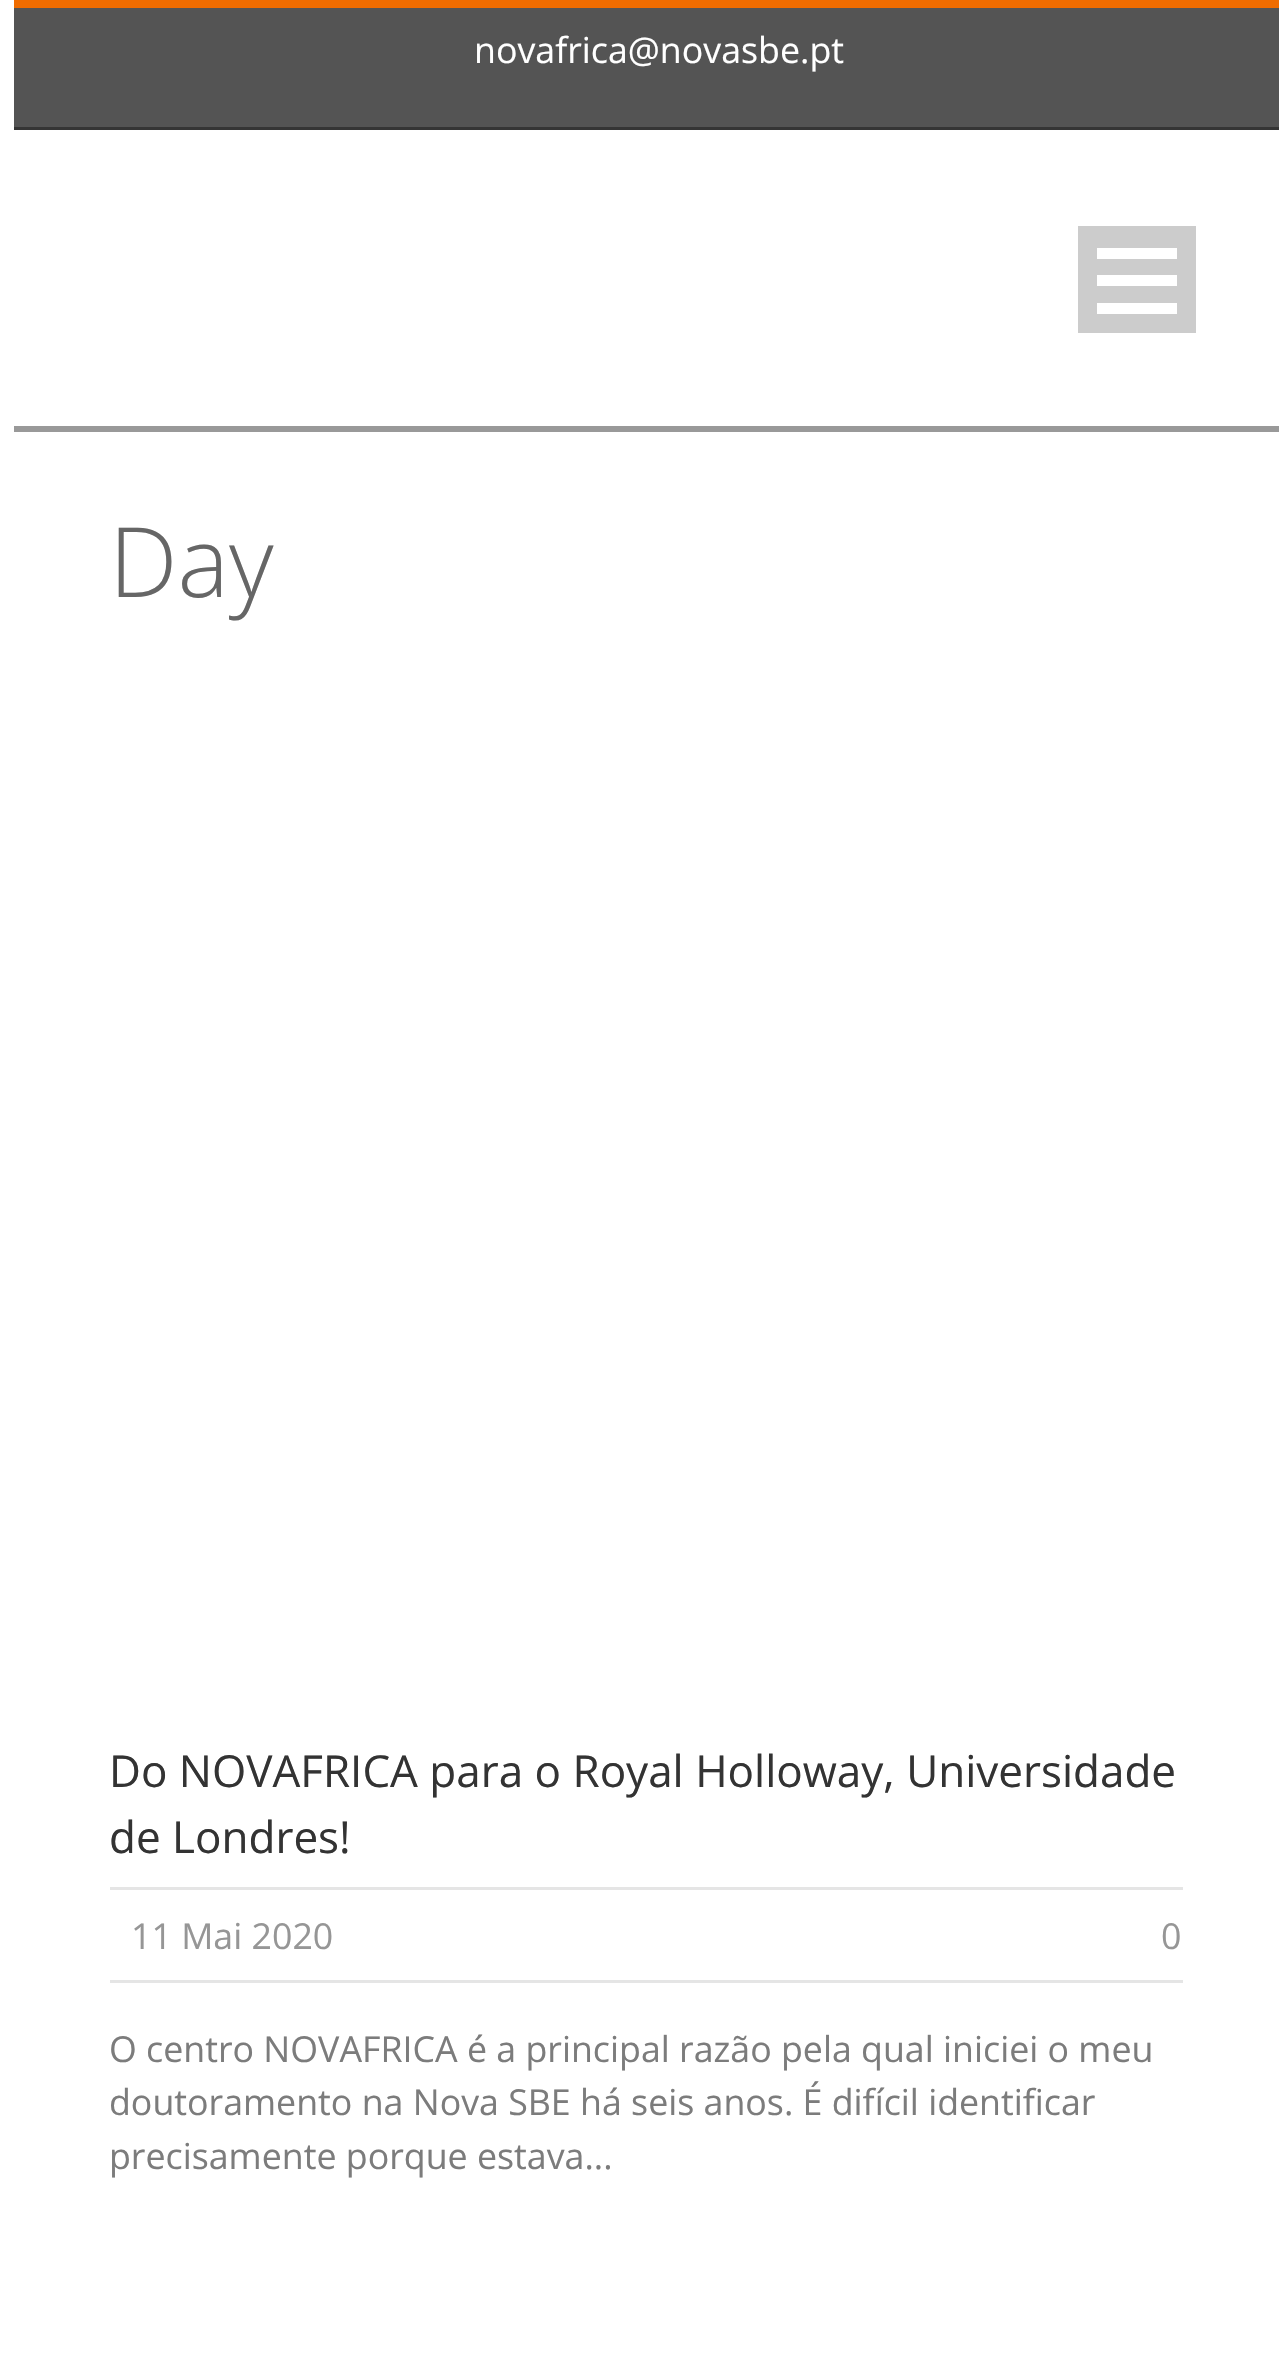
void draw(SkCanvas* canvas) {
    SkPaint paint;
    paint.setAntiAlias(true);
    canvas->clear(0xFFFFFFFF);
    paint.setColor(0xFF545454);
    canvas->drawRect(SkRect::MakeXYWH(14, 8, 1265, 119), paint);
    paint.setColor(0xFFEF6C00);
    canvas->drawRect(SkRect::MakeXYWH(14, 0, 1265, 8), paint);
    paint.setColor(0xFF353535);
    canvas->drawRect(SkRect::MakeXYWH(14, 127, 1265, 3), paint);
    SkFont font1(fontMgr->matchFamilyStyle("Open Sans", SkFontStyle::Normal()), 35.75f);
    font1.setSubpixel(true);
    paint.setColor(0xFFFFFFFF);
    canvas->drawString("novafrica@novasbe.pt", 474, 63, font1, paint);
    paint.setColor(0xFFCCCCCC);
    canvas->drawRect(SkRect::MakeXYWH(1078, 226, 118, 107), paint);
    paint.setColor(0xFFFFFFFF);
    canvas->drawRect(SkRect::MakeXYWH(1097, 303, 80, 11), paint);
    canvas->drawRect(SkRect::MakeXYWH(1097, 275, 80, 11), paint);
    canvas->drawRect(SkRect::MakeXYWH(1097, 248, 80, 11), paint);
    paint.setColor(0xFF999999);
    canvas->drawRect(SkRect::MakeXYWH(14, 426, 1265, 6), paint);
    SkFont font2(fontMgr->matchFamilyStyle("Open Sans", SkFontStyle(300, SkFontStyle::kNormal_Width, SkFontStyle::kUpright_Slant)), 97);
    font2.setSubpixel(true);
    paint.setColor(0xFF666666);
    canvas->drawString("Day", 109, 597, font2, paint);
    SkFont font3(fontMgr->matchFamilyStyle("Open Sans", SkFontStyle::Normal()), 44);
    font3.setSubpixel(true);
    paint.setColor(0xFF333333);
    canvas->drawString("Do NOVAFRICA para o Royal Holloway, Universidade", 109, 1787, font3, paint);
    canvas->drawString("de Londres!", 109, 1853, font3, paint);
    paint.setColor(0xFFE5E5E5);
    canvas->drawRect(SkRect::MakeXYWH(110, 1887, 1073, 3), paint);
    canvas->drawRect(SkRect::MakeXYWH(110, 1980, 1073, 3), paint);
    paint.setColor(0xFF969696);
    canvas->drawString("11 Mai 2020", 131, 1949, font1, paint);
    canvas->drawString("0", 1161, 1949, font1, paint);
    paint.setColor(0xFF7C7C7C);
    canvas->drawString("O centro NOVAFRICA é a principal razão pela qual iniciei o meu", 109, 2062, font1, paint);
    canvas->drawString("doutoramento na Nova SBE há seis anos. É difícil identificar", 109, 2115, font1, paint);
    canvas->drawString("precisamente porque estava...", 109, 2169, font1, paint);
}
